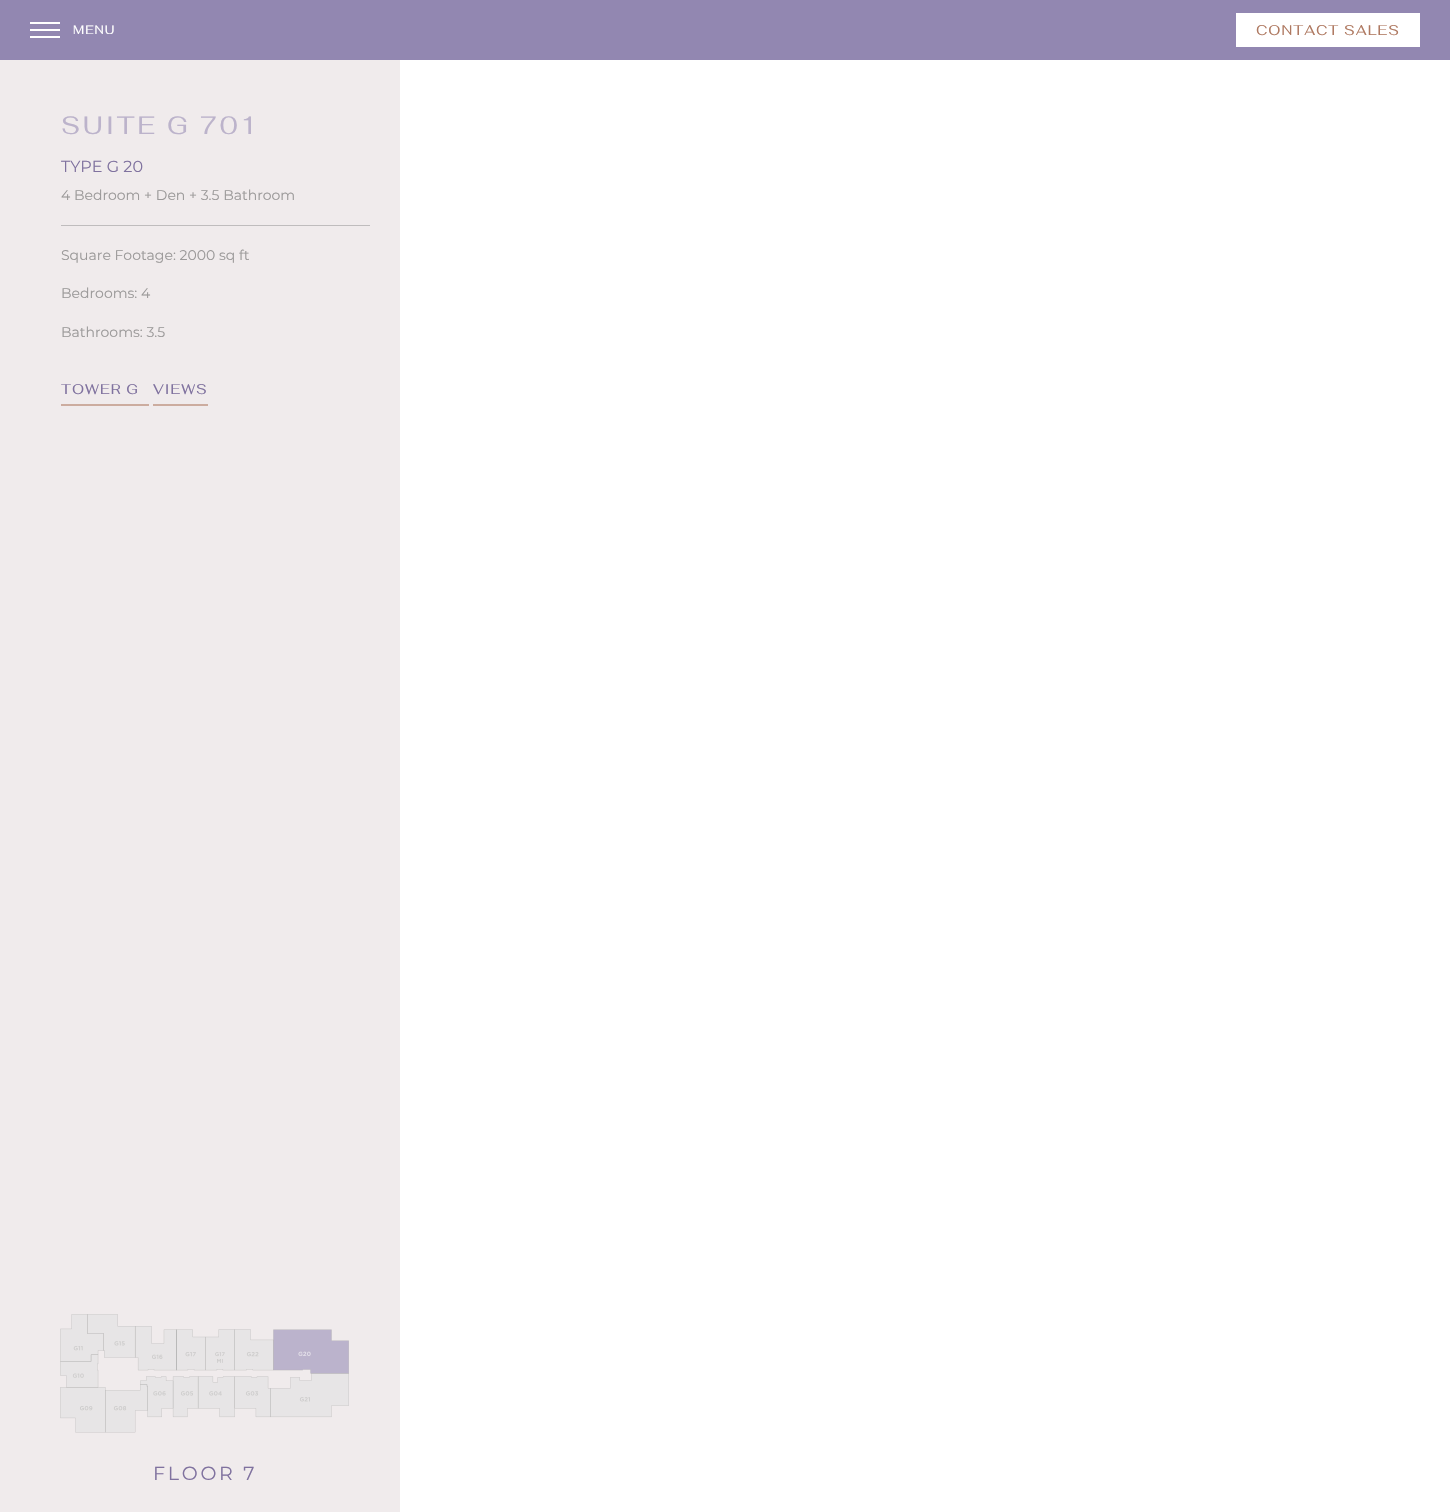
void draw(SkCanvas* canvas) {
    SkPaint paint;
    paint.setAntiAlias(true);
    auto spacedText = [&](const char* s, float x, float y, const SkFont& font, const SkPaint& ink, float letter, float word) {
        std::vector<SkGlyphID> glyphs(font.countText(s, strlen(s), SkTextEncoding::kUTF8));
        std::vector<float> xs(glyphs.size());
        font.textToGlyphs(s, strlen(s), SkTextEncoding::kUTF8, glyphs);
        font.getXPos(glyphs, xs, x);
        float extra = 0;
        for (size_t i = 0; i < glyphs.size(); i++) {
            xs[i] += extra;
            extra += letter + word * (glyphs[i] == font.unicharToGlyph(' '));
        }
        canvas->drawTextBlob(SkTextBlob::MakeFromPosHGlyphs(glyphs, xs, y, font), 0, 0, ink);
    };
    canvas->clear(0xFFFFFFFF);
    paint.setColor(0xFF9287B1);
    canvas->drawRect(SkRect::MakeXYWH(0, 0, 1450, 60), paint);
    paint.setColor(0xFFFFFFFF);
    canvas->drawRect(SkRect::MakeXYWH(30, 22, 30, 2), paint);
    canvas->drawRect(SkRect::MakeXYWH(30, 29, 30, 2), paint);
    canvas->drawRect(SkRect::MakeXYWH(30, 36, 30, 2), paint);
    SkFont font1(fontMgr->matchFamilyStyle("Fahkwang", SkFontStyle::Normal()), 12);
    font1.setSubpixel(true);
    spacedText("MENU", 73, 34, font1, paint, 1, 0);
    canvas->drawRect(SkRect::MakeXYWH(1236, 13, 184, 34), paint);
    SkFont font2(fontMgr->matchFamilyStyle("Fahkwang", SkFontStyle::Normal()), 14);
    font2.setSubpixel(true);
    paint.setColor(0xFFAF7961);
    spacedText("CONTACT SALES", 1256, 35, font2, paint, 1, 0);
    paint.setColor(0xFFF0EBEC);
    canvas->drawRect(SkRect::MakeXYWH(0, 60, 400, 1452), paint);
    SkFont font3(fontMgr->matchFamilyStyle("Fahkwang", SkFontStyle::Normal()), 25);
    font3.setSubpixel(true);
    paint.setColor(0xFFBCB3CB);
    spacedText("SUITE G 701", 61, 134, font3, paint, 2.75f, 0);
    SkFont font4(fontMgr->matchFamilyStyle("Montserrat", SkFontStyle::Normal()), 16);
    font4.setSubpixel(true);
    paint.setColor(0xFF80729F);
    canvas->drawString("TYPE G 20", 61, 172, font4, paint);
    SkFont font5(fontMgr->matchFamilyStyle("Montserrat", SkFontStyle::Normal()), 14);
    font5.setSubpixel(true);
    paint.setColor(0xFF9B9999);
    canvas->drawString("4 Bedroom + Den + 3.5 Bathroom", 61, 200, font5, paint);
    paint.setColor(0xFFBFBCBD);
    canvas->drawRect(SkRect::MakeXYWH(61, 225, 309, 1), paint);
    paint.setColor(0xFF9B9999);
    canvas->drawString("Square Footage: 2000 sq ft", 61, 260, font5, paint);
    canvas->drawString("Bedrooms: 4", 61, 298, font5, paint);
    canvas->drawString("Bathrooms: 3.5", 61, 337, font5, paint);
    paint.setColor(0xFF80729F);
    spacedText("TOWER G", 61, 394, font2, paint, 1, 0);
    paint.setColor(0xFFCCAC9F);
    canvas->drawRect(SkRect::MakeXYWH(61, 404, 88, 2), paint);
    paint.setColor(0xFF80729F);
    spacedText("VIEWS", 153, 394, font2, paint, 1, 0);
    paint.setColor(0xFFCCAC9F);
    canvas->drawRect(SkRect::MakeXYWH(153, 404, 55, 2), paint);
    canvas->drawImageRect(SkImages::DeferredFromEncodedData(SkData::MakeFromFileName("img1.png")), SkRect::MakeXYWH(60, 1314, 289, 119), SkSamplingOptions());
    SkFont font6(fontMgr->matchFamilyStyle("Montserrat", SkFontStyle::Normal()), 19);
    font6.setSubpixel(true);
    paint.setColor(0xFF80729F);
    spacedText("FLOOR 7", 153, 1480, font6, paint, 2.75f, 0);
}
